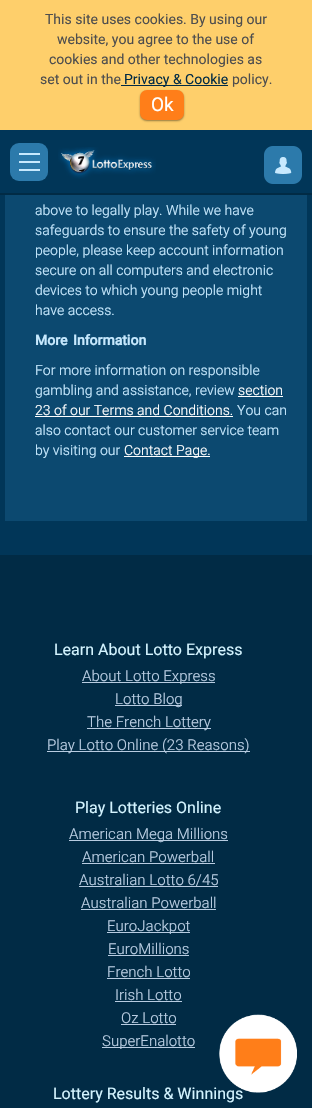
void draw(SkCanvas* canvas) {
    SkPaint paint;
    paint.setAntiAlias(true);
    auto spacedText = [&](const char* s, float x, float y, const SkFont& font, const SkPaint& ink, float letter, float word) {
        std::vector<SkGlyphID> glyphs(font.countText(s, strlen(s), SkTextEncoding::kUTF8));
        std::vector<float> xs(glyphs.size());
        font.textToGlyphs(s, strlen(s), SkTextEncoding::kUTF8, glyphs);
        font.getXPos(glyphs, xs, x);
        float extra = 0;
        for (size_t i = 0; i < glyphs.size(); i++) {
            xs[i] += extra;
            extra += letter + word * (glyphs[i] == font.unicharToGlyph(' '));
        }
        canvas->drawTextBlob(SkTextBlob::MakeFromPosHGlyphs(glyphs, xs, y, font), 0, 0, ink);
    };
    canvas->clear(0xFF013658);
    paint.setColor(0xFFFECF6B);
    canvas->drawRect(SkRect::MakeXYWH(0, 0, 312, 130), paint);
    SkFont font1(fontMgr->matchFamilyStyle("Heebo", SkFontStyle::Normal()), 14);
    font1.setSubpixel(true);
    paint.setColor(0xFF4E4E4E);
    canvas->drawString("This site uses cookies. By using our", 45, 24, font1, paint);
    canvas->drawString("website, you agree to the use of", 57, 44, font1, paint);
    canvas->drawString("cookies and other technologies as", 49, 64, font1, paint);
    canvas->drawString("set out in the", 40, 84, font1, paint);
    paint.setColor(0xFF012B45);
    canvas->drawRect(SkRect::MakeXYWH(121, 85, 107, 1), paint);
    canvas->drawString("Privacy & Cookie", 124, 84, font1, paint);
    paint.setColor(0xFF4E4E4E);
    canvas->drawString("policy.", 232, 84, font1, paint);
    paint.setColor(0x69000000);
    paint.setMaskFilter(SkMaskFilter::MakeBlur(kNormal_SkBlurStyle, 1));
    canvas->drawRoundRect(SkRect::MakeXYWH(140, 91, 44, 30), 7, 7, paint);
    paint.setMaskFilter(nullptr);
    paint.setColor(0xFFFF7E19);
    canvas->drawRoundRect(SkRect::MakeXYWH(140, 90, 44, 30), 7, 7, paint);
    SkFont font2(fontMgr->matchFamilyStyle("Heebo", SkFontStyle::Normal()), 19);
    font2.setSubpixel(true);
    paint.setColor(0xFFFFFFFF);
    canvas->drawString("Ok", 151, 111, font2, paint);
    paint.setColor(0xFF012B45);
    canvas->drawRect(SkRect::MakeXYWH(0, 193, 312, 2), paint);
    paint.setColor(0xFF2C7AAB);
    canvas->drawRoundRect(SkRect::MakeXYWH(10, 143, 38, 38), 9, 9, paint);
    paint.setColor(0xFFC7E9FE);
    canvas->drawRect(SkRect::MakeXYWH(19, 153, 21, 2), paint);
    canvas->drawRect(SkRect::MakeXYWH(19, 161, 21, 2), paint);
    canvas->drawRect(SkRect::MakeXYWH(19, 169, 21, 2), paint);
    canvas->drawImageRect(SkImages::DeferredFromEncodedData(SkData::MakeFromFileName("img1.png")), SkRect::MakeXYWH(264, 146, 38, 38), SkSamplingOptions());
    canvas->drawImageRect(SkImages::DeferredFromEncodedData(SkData::MakeFromFileName("img2.png")), SkRect::MakeXYWH(58, 147, 98, 32), SkSamplingOptions());
    paint.setColor(0xFF0C4970);
    canvas->drawRect(SkRect::MakeXYWH(5, 195, 302, 326), paint);
    SkFont font3(fontMgr->matchFamilyStyle("Heebo", SkFontStyle(300, SkFontStyle::kNormal_Width, SkFontStyle::kUpright_Slant)), 14);
    font3.setSubpixel(true);
    paint.setColor(0xFFC7E9FE);
    canvas->drawString("above to legally play. While we have", 35, 215, font3, paint);
    canvas->drawString("safeguards to ensure the safety of young", 35, 235, font3, paint);
    canvas->drawString("people, please keep account information", 35, 255, font3, paint);
    canvas->drawString("secure on all computers and electronic", 35, 275, font3, paint);
    canvas->drawString("devices to which young people might", 35, 295, font3, paint);
    canvas->drawString("have access.", 35, 315, font3, paint);
    SkFont font4(fontMgr->matchFamilyStyle("Heebo", SkFontStyle::Bold()), 14);
    font4.setSubpixel(true);
    spacedText("More Information", 35, 345, font4, paint, 0, 2);
    canvas->drawString("For more information on responsible", 35, 375, font3, paint);
    canvas->drawString("gambling and assistance, review", 35, 395, font3, paint);
    paint.setColor(0xFFFFFFFF);
    canvas->drawString("section", 238, 395, font3, paint);
    canvas->drawRect(SkRect::MakeXYWH(238, 396, 45, 1), paint);
    canvas->drawString("23 of our Terms and Conditions.", 35, 415, font3, paint);
    canvas->drawRect(SkRect::MakeXYWH(35, 416, 198, 1), paint);
    paint.setColor(0xFFC7E9FE);
    canvas->drawString("You can", 237, 415, font3, paint);
    canvas->drawString("also contact our customer service team", 35, 435, font3, paint);
    canvas->drawString("by visiting our", 35, 455, font3, paint);
    paint.setColor(0xFFFFFFFF);
    canvas->drawRect(SkRect::MakeXYWH(124, 456, 86, 1), paint);
    canvas->drawString("Contact Page.", 124, 455, font3, paint);
    paint.setColor(0xFF012B45);
    canvas->drawRect(SkRect::MakeXYWH(0, 555, 312, 553), paint);
    SkFont font5(fontMgr->matchFamilyStyle("Heebo", SkFontStyle::Normal()), 16);
    font5.setSubpixel(true);
    paint.setColor(0xFFD4F4FF);
    canvas->drawString("Learn About Lotto Express", 54, 655, font5, paint);
    paint.setColor(0xFFB8CCE1);
    canvas->drawRect(SkRect::MakeXYWH(82, 682, 133, 1), paint);
    SkFont font6(fontMgr->matchFamilyStyle("Heebo", SkFontStyle(300, SkFontStyle::kNormal_Width, SkFontStyle::kUpright_Slant)), 15);
    font6.setSubpixel(true);
    canvas->drawString("About Lotto Express", 82, 681, font6, paint);
    canvas->drawRect(SkRect::MakeXYWH(115, 705, 67, 1), paint);
    canvas->drawString("Lotto Blog", 115, 704, font6, paint);
    canvas->drawRect(SkRect::MakeXYWH(87, 728, 124, 1), paint);
    canvas->drawString("The French Lottery", 87, 727, font6, paint);
    canvas->drawRect(SkRect::MakeXYWH(47, 751, 203, 1), paint);
    canvas->drawString("Play Lotto Online (23 Reasons)", 47, 750, font6, paint);
    paint.setColor(0xFFD4F4FF);
    canvas->drawString("Play Lotteries Online", 75, 813, font5, paint);
    paint.setColor(0xFFB8CCE1);
    canvas->drawRect(SkRect::MakeXYWH(69, 840, 159, 1), paint);
    canvas->drawString("American Mega Millions", 69, 839, font6, paint);
    canvas->drawString("American Powerball", 82, 862, font6, paint);
    canvas->drawRect(SkRect::MakeXYWH(82, 863, 133, 1), paint);
    canvas->drawString("Australian Lotto 6/45", 79, 885, font6, paint);
    canvas->drawRect(SkRect::MakeXYWH(79, 886, 139, 1), paint);
    canvas->drawString("Australian Powerball", 81, 908, font6, paint);
    canvas->drawRect(SkRect::MakeXYWH(81, 909, 135, 1), paint);
    canvas->drawRect(SkRect::MakeXYWH(107, 932, 83, 1), paint);
    canvas->drawString("EuroJackpot", 107, 931, font6, paint);
    canvas->drawString("EuroMillions", 108, 954, font6, paint);
    canvas->drawRect(SkRect::MakeXYWH(108, 955, 81, 1), paint);
    canvas->drawString("French Lotto", 107, 977, font6, paint);
    canvas->drawRect(SkRect::MakeXYWH(107, 978, 83, 1), paint);
    canvas->drawString("Irish Lotto", 115, 1000, font6, paint);
    canvas->drawRect(SkRect::MakeXYWH(115, 1001, 67, 1), paint);
    canvas->drawString("Oz Lotto", 121, 1023, font6, paint);
    canvas->drawRect(SkRect::MakeXYWH(121, 1024, 55, 1), paint);
    canvas->drawRect(SkRect::MakeXYWH(102, 1047, 93, 1), paint);
    canvas->drawString("SuperEnalotto", 102, 1046, font6, paint);
    paint.setColor(0xFFD4F4FF);
    canvas->drawString("Lottery Results & Winnings", 53, 1099, font5, paint);
    canvas->drawImageRect(SkImages::DeferredFromEncodedData(SkData::MakeFromFileName("img3.png")), SkRect::MakeXYWH(219, 1014, 78, 79), SkSamplingOptions());
}
